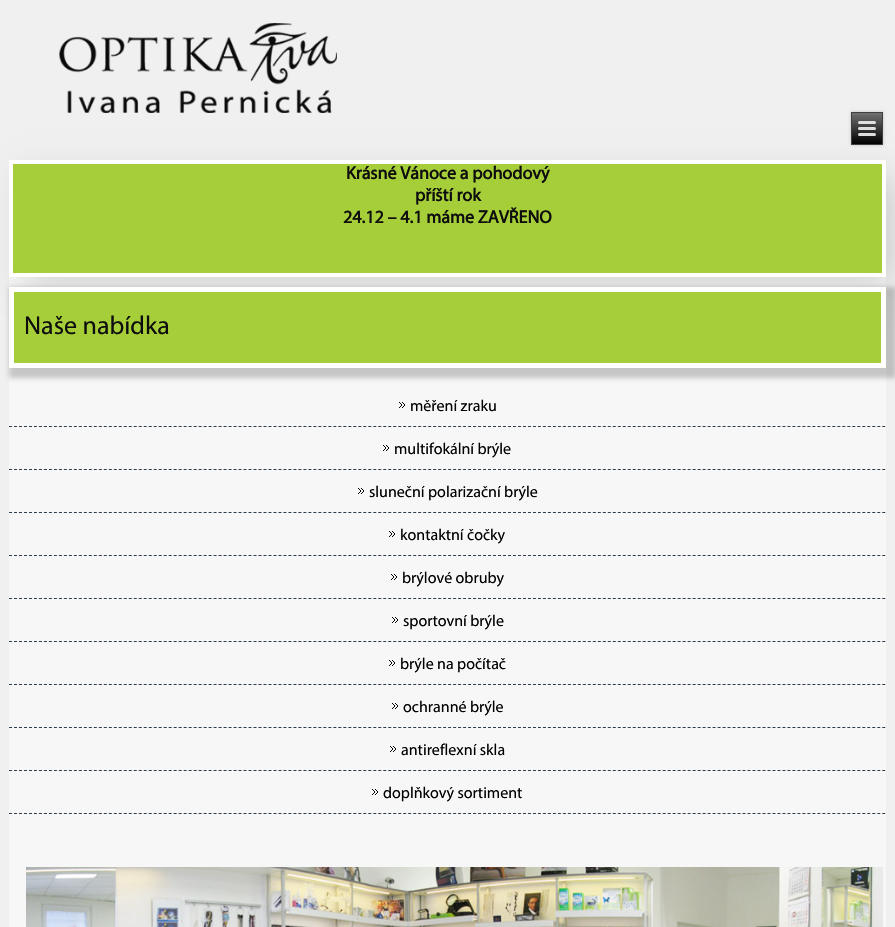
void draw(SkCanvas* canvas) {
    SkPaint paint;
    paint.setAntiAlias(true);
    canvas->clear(0xFFF0F0F0);
    canvas->drawImageRect(SkImages::DeferredFromEncodedData(SkData::MakeFromFileName("img1.png")), SkRect::MakeXYWH(59, 23, 278, 90), SkSamplingOptions());
    paint.setColor(0x33000000);
    paint.setMaskFilter(SkMaskFilter::MakeBlur(kNormal_SkBlurStyle, 1.5f));
    canvas->drawRect(SkRect::MakeXYWH(851, 112, 32, 33), paint);
    paint.setMaskFilter(nullptr);
    {
        const SkColor colors[] = {0xFF707070, 0xFF000000};
        const float stops[] = {0, 1};
        const SkPoint ends[] = {{867, 113}, {867, 144}};
        paint.setShader(SkGradientShader::MakeLinear(ends, colors, stops, 2, SkTileMode::kClamp));
        paint.setAlpha(255);
    }
    canvas->drawRect(SkRect::MakeXYWH(852, 113, 30, 31), paint);
    paint.setStyle(SkPaint::kStroke_Style);
    paint.setStrokeWidth(1);
    paint.setShader(nullptr);
    paint.setColor(0xFF404040);
    canvas->drawRect(SkRect::MakeXYWH(851.5f, 112.5f, 31, 32), paint);
    paint.setStyle(SkPaint::kFill_Style);
    paint.setColor(0xFFE0E0E0);
    canvas->drawRoundRect(SkRect::MakeXYWH(858, 121, 18, 3), 1.5f, 1.5f, paint);
    canvas->drawRoundRect(SkRect::MakeXYWH(858, 127, 18, 3), 1.5f, 1.5f, paint);
    canvas->drawRoundRect(SkRect::MakeXYWH(858, 133, 18, 3), 1.5f, 1.5f, paint);
    paint.setColor(0xFFF7F7F7);
    canvas->drawRect(SkRect::MakeXYWH(9, 277, 877, 650), paint);
    paint.setColor(0x2B000000);
    paint.setMaskFilter(SkMaskFilter::MakeBlur(kNormal_SkBlurStyle, 16));
    canvas->drawRect(SkRect::MakeXYWH(24, 176, 867, 107), paint);
    paint.setMaskFilter(nullptr);
    paint.setColor(0xFFA6CE39);
    canvas->drawRect(SkRect::MakeXYWH(11, 162, 873, 113), paint);
    paint.setStyle(SkPaint::kStroke_Style);
    paint.setStrokeWidth(4);
    paint.setColor(0xFFFFFFFF);
    canvas->drawRect(SkRect::MakeXYWH(11, 162, 873, 113), paint);
    SkFont font1(fontMgr->matchFamilyStyle("Myriad", SkFontStyle::Bold()), 18);
    font1.setSubpixel(true);
    paint.setStyle(SkPaint::kFill_Style);
    paint.setColor(0xFF0D0D0D);
    canvas->drawString("Krásné Vánoce a pohodový", 346, 179, font1, paint);
    canvas->drawString("příští rok", 415, 201, font1, paint);
    canvas->drawString("24.12 – 4.1 máme ZAVŘENO", 343, 223, font1, paint);
    paint.setColor(0x33000000);
    paint.setMaskFilter(SkMaskFilter::MakeBlur(kNormal_SkBlurStyle, 2.5f));
    canvas->drawRect(SkRect::MakeXYWH(9, 287, 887, 91), paint);
    paint.setMaskFilter(nullptr);
    paint.setColor(0xFFA6CE39);
    canvas->drawRect(SkRect::MakeXYWH(11.5f, 289.5f, 872, 76), paint);
    paint.setStyle(SkPaint::kStroke_Style);
    paint.setStrokeWidth(5);
    paint.setColor(0xFFFFFFFF);
    canvas->drawRect(SkRect::MakeXYWH(11.5f, 289.5f, 872, 76), paint);
    SkFont font2(fontMgr->matchFamilyStyle("Myriad", SkFontStyle::Normal()), 26);
    font2.setSubpixel(true);
    paint.setStyle(SkPaint::kFill_Style);
    paint.setColor(0xFF0D0D0D);
    canvas->drawString("Naše nabídka", 24, 334, font2, paint);
    paint.setStyle(SkPaint::kStroke_Style);
    paint.setStrokeWidth(1);
    paint.setColor(0xFF2E3D4C);
    paint.setPathEffect(SkDashPathEffect::Make({{3, 1.99f}}, 0));
    canvas->drawPath(SkPathBuilder().moveTo(9, 426.5f).lineTo(886, 426.5f).detach(), paint);
    paint.setPathEffect(nullptr);
    canvas->drawImageRect(SkImages::DeferredFromEncodedData(SkData::MakeFromFileName("img2.png")), SkRect::MakeXYWH(399, 402, 6, 6), SkSamplingOptions());
    SkFont font3(fontMgr->matchFamilyStyle("Myriad", SkFontStyle::Normal()), 16);
    font3.setSubpixel(true);
    paint.setStyle(SkPaint::kFill_Style);
    paint.setColor(0xFF000000);
    canvas->drawString("měření zraku", 410, 411, font3, paint);
    paint.setStyle(SkPaint::kStroke_Style);
    paint.setColor(0xFF2E3D4C);
    paint.setPathEffect(SkDashPathEffect::Make({{3, 1.99f}}, 0));
    canvas->drawPath(SkPathBuilder().moveTo(9, 469.5f).lineTo(886, 469.5f).detach(), paint);
    paint.setPathEffect(nullptr);
    canvas->drawImageRect(SkImages::DeferredFromEncodedData(SkData::MakeFromFileName("img2.png")), SkRect::MakeXYWH(383, 445, 6, 6), SkSamplingOptions());
    paint.setStyle(SkPaint::kFill_Style);
    paint.setColor(0xFF000000);
    canvas->drawString("multifokální brýle", 394, 454, font3, paint);
    paint.setStyle(SkPaint::kStroke_Style);
    paint.setColor(0xFF2E3D4C);
    paint.setPathEffect(SkDashPathEffect::Make({{3, 1.99f}}, 0));
    canvas->drawPath(SkPathBuilder().moveTo(9, 512.5f).lineTo(886, 512.5f).detach(), paint);
    paint.setPathEffect(nullptr);
    canvas->drawImageRect(SkImages::DeferredFromEncodedData(SkData::MakeFromFileName("img2.png")), SkRect::MakeXYWH(358, 488, 6, 6), SkSamplingOptions());
    paint.setStyle(SkPaint::kFill_Style);
    paint.setColor(0xFF000000);
    canvas->drawString("sluneční polarizační brýle", 369, 497, font3, paint);
    paint.setStyle(SkPaint::kStroke_Style);
    paint.setColor(0xFF2E3D4C);
    paint.setPathEffect(SkDashPathEffect::Make({{3, 1.99f}}, 0));
    canvas->drawPath(SkPathBuilder().moveTo(9, 555.5f).lineTo(886, 555.5f).detach(), paint);
    paint.setPathEffect(nullptr);
    canvas->drawImageRect(SkImages::DeferredFromEncodedData(SkData::MakeFromFileName("img2.png")), SkRect::MakeXYWH(389, 531, 6, 6), SkSamplingOptions());
    paint.setStyle(SkPaint::kFill_Style);
    paint.setColor(0xFF000000);
    canvas->drawString("kontaktní čočky", 400, 540, font3, paint);
    paint.setStyle(SkPaint::kStroke_Style);
    paint.setColor(0xFF2E3D4C);
    paint.setPathEffect(SkDashPathEffect::Make({{3, 1.99f}}, 0));
    canvas->drawPath(SkPathBuilder().moveTo(9, 598.5f).lineTo(886, 598.5f).detach(), paint);
    paint.setPathEffect(nullptr);
    canvas->drawImageRect(SkImages::DeferredFromEncodedData(SkData::MakeFromFileName("img2.png")), SkRect::MakeXYWH(391, 574, 6, 6), SkSamplingOptions());
    paint.setStyle(SkPaint::kFill_Style);
    paint.setColor(0xFF000000);
    canvas->drawString("brýlové obruby", 402, 583, font3, paint);
    paint.setStyle(SkPaint::kStroke_Style);
    paint.setColor(0xFF2E3D4C);
    paint.setPathEffect(SkDashPathEffect::Make({{3, 1.99f}}, 0));
    canvas->drawPath(SkPathBuilder().moveTo(9, 641.5f).lineTo(886, 641.5f).detach(), paint);
    paint.setPathEffect(nullptr);
    canvas->drawImageRect(SkImages::DeferredFromEncodedData(SkData::MakeFromFileName("img2.png")), SkRect::MakeXYWH(392, 617, 6, 6), SkSamplingOptions());
    paint.setStyle(SkPaint::kFill_Style);
    paint.setColor(0xFF000000);
    canvas->drawString("sportovní brýle", 403, 626, font3, paint);
    paint.setStyle(SkPaint::kStroke_Style);
    paint.setColor(0xFF2E3D4C);
    paint.setPathEffect(SkDashPathEffect::Make({{3, 1.99f}}, 0));
    canvas->drawPath(SkPathBuilder().moveTo(9, 684.5f).lineTo(886, 684.5f).detach(), paint);
    paint.setPathEffect(nullptr);
    canvas->drawImageRect(SkImages::DeferredFromEncodedData(SkData::MakeFromFileName("img2.png")), SkRect::MakeXYWH(389, 660, 6, 6), SkSamplingOptions());
    paint.setStyle(SkPaint::kFill_Style);
    paint.setColor(0xFF000000);
    canvas->drawString("brýle na počítač", 400, 669, font3, paint);
    paint.setStyle(SkPaint::kStroke_Style);
    paint.setColor(0xFF2E3D4C);
    paint.setPathEffect(SkDashPathEffect::Make({{3, 1.99f}}, 0));
    canvas->drawPath(SkPathBuilder().moveTo(9, 727.5f).lineTo(886, 727.5f).detach(), paint);
    paint.setPathEffect(nullptr);
    canvas->drawImageRect(SkImages::DeferredFromEncodedData(SkData::MakeFromFileName("img2.png")), SkRect::MakeXYWH(392, 703, 6, 6), SkSamplingOptions());
    paint.setStyle(SkPaint::kFill_Style);
    paint.setColor(0xFF000000);
    canvas->drawString("ochranné brýle", 403, 712, font3, paint);
    paint.setStyle(SkPaint::kStroke_Style);
    paint.setColor(0xFF2E3D4C);
    paint.setPathEffect(SkDashPathEffect::Make({{3, 1.99f}}, 0));
    canvas->drawPath(SkPathBuilder().moveTo(9, 770.5f).lineTo(886, 770.5f).detach(), paint);
    paint.setPathEffect(nullptr);
    canvas->drawImageRect(SkImages::DeferredFromEncodedData(SkData::MakeFromFileName("img2.png")), SkRect::MakeXYWH(390, 746, 6, 6), SkSamplingOptions());
    paint.setStyle(SkPaint::kFill_Style);
    paint.setColor(0xFF000000);
    canvas->drawString("antireflexní skla", 401, 755, font3, paint);
    paint.setStyle(SkPaint::kStroke_Style);
    paint.setColor(0xFF2E3D4C);
    paint.setPathEffect(SkDashPathEffect::Make({{3, 1.99f}}, 0));
    canvas->drawPath(SkPathBuilder().moveTo(9, 813.5f).lineTo(886, 813.5f).detach(), paint);
    paint.setPathEffect(nullptr);
    canvas->drawImageRect(SkImages::DeferredFromEncodedData(SkData::MakeFromFileName("img2.png")), SkRect::MakeXYWH(372, 789, 6, 6), SkSamplingOptions());
    paint.setStyle(SkPaint::kFill_Style);
    paint.setColor(0xFF000000);
    canvas->drawString("doplňkový sortiment", 383, 798, font3, paint);
    canvas->drawImageRect(SkImages::DeferredFromEncodedData(SkData::MakeFromFileName("img3.png")), SkRect::MakeXYWH(26, 867, 857, 60), SkSamplingOptions());
}
